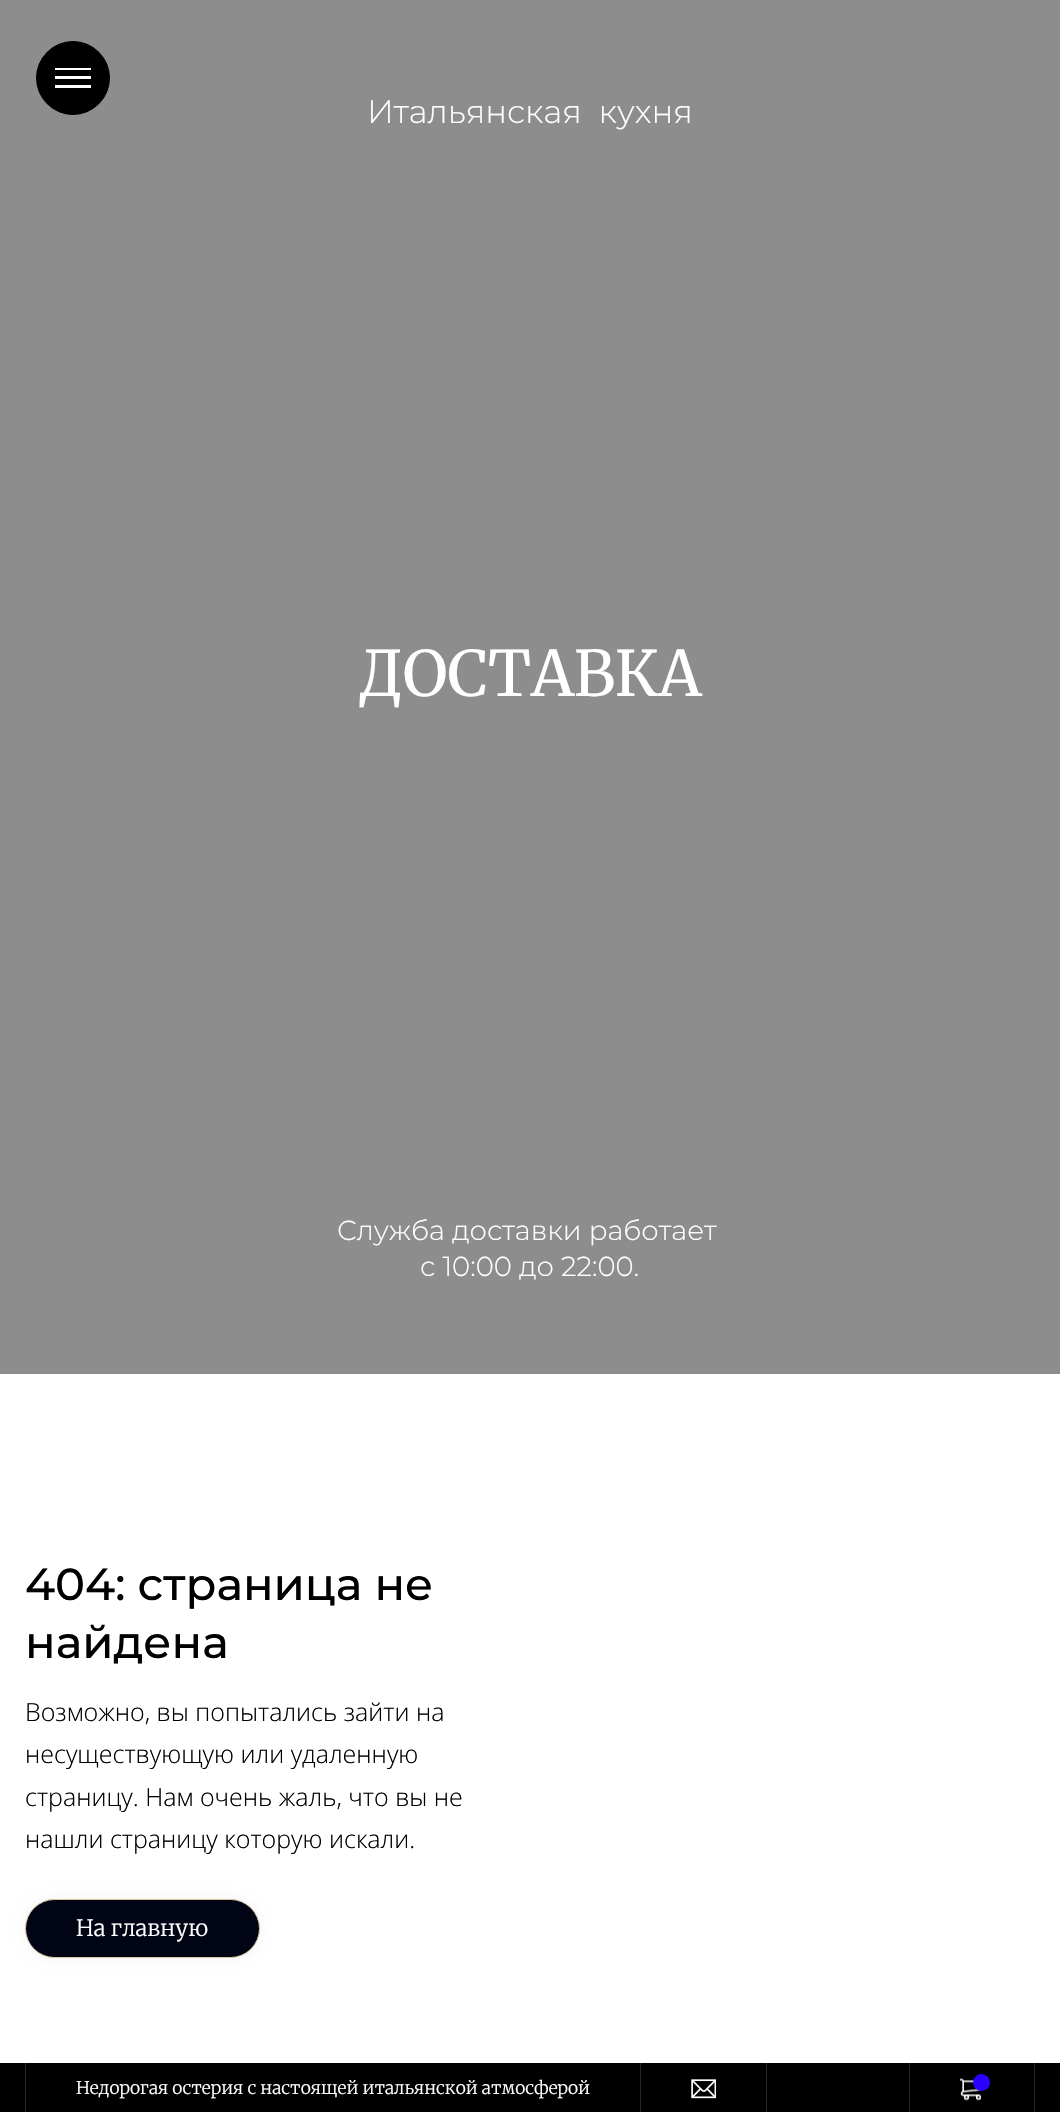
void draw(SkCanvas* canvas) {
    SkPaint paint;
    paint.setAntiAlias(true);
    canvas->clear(0xFFFFFFFF);
    paint.setColor(0xFF8D8D8D);
    canvas->drawRect(SkRect::MakeXYWH(0, 0, 1060, 1374), paint);
    paint.setColor(0xFF000000);
    canvas->drawCircle(73, 78, 36.5f, paint);
    paint.setStyle(SkPaint::kStroke_Style);
    paint.setStrokeWidth(1);
    canvas->drawCircle(73, 78, 36.5f, paint);
    paint.setStyle(SkPaint::kFill_Style);
    paint.setColor(0xFFFFFFFF);
    canvas->drawRect(SkRect::MakeXYWH(55, 68, 36, 2), paint);
    canvas->drawRect(SkRect::MakeXYWH(55, 76, 36, 3), paint);
    canvas->drawRect(SkRect::MakeXYWH(55, 85, 36, 3), paint);
    SkFont font1(fontMgr->matchFamilyStyle("Montserrat", SkFontStyle(300, SkFontStyle::kNormal_Width, SkFontStyle::kUpright_Slant)), 32.5f);
    font1.setSubpixel(true);
    canvas->drawString("Итальянская  кухня", 367, 123, font1, paint);
    SkFont font2(fontMgr->matchFamilyStyle("Merriweather", SkFontStyle::Normal()), 62.5f);
    font2.setSubpixel(true);
    canvas->drawString("ДОСТАВКА", 359, 696, font2, paint);
    SkFont font3(fontMgr->matchFamilyStyle("Montserrat", SkFontStyle(300, SkFontStyle::kNormal_Width, SkFontStyle::kUpright_Slant)), 27.5f);
    font3.setSubpixel(true);
    canvas->drawString("Служба доставки работает", 337, 1240, font3, paint);
    canvas->drawString("с 10:00 до 22:00.", 420, 1276, font3, paint);
    SkFont font4(fontMgr->matchFamilyStyle("Montserrat", SkFontStyle(500, SkFontStyle::kNormal_Width, SkFontStyle::kUpright_Slant)), 45);
    font4.setSubpixel(true);
    paint.setColor(0xFF000000);
    canvas->drawString("404: страница не", 25, 1600, font4, paint);
    canvas->drawString("найдена", 25, 1658, font4, paint);
    SkFont font5(fontMgr->matchFamilyStyle("Open Sans", SkFontStyle(300, SkFontStyle::kNormal_Width, SkFontStyle::kUpright_Slant)), 25);
    font5.setSubpixel(true);
    canvas->drawString("Возможно, вы попытались зайти на", 25, 1721, font5, paint);
    canvas->drawString("несуществующую или удаленную", 25, 1763, font5, paint);
    canvas->drawString("страницу. Нам очень жаль, что вы не", 25, 1806, font5, paint);
    canvas->drawString("нашли страницу которую искали.", 25, 1848, font5, paint);
    paint.setColor(0xFFF7F2F2);
    paint.setMaskFilter(SkMaskFilter::MakeBlur(kNormal_SkBlurStyle, 6));
    canvas->drawRoundRect(SkRect::MakeXYWH(25, 1899, 235, 59), 29.5f, 29.5f, paint);
    paint.setMaskFilter(nullptr);
    paint.setColor(0xFF010414);
    canvas->drawRoundRect(SkRect::MakeXYWH(25.5f, 1899.5f, 234, 58), 29, 29, paint);
    paint.setStyle(SkPaint::kStroke_Style);
    paint.setColor(0xFFDBC69E);
    canvas->drawRoundRect(SkRect::MakeXYWH(25.5f, 1899.5f, 234, 58), 29, 29, paint);
    SkFont font6(fontMgr->matchFamilyStyle("Merriweather", SkFontStyle(300, SkFontStyle::kNormal_Width, SkFontStyle::kUpright_Slant)), 22.5f);
    font6.setSubpixel(true);
    paint.setStyle(SkPaint::kFill_Style);
    paint.setColor(0xFFFFFFFF);
    canvas->drawString("На главную", 76, 1936, font6, paint);
    paint.setColor(0xFF000000);
    canvas->drawRect(SkRect::MakeXYWH(0, 2063, 1060, 49), paint);
    paint.setColor(0xFF262626);
    canvas->drawRect(SkRect::MakeXYWH(640, 2063, 1, 49), paint);
    canvas->drawRect(SkRect::MakeXYWH(25, 2063, 1, 49), paint);
    SkFont font7(fontMgr->matchFamilyStyle("Merriweather", SkFontStyle(300, SkFontStyle::kNormal_Width, SkFontStyle::kUpright_Slant)), 17.5f);
    font7.setSubpixel(true);
    paint.setColor(0xFFFFFFFF);
    canvas->drawString("Недорогая остерия с настоящей итальянской атмосферой", 76, 2094, font7, paint);
    paint.setColor(0xFF262626);
    canvas->drawRect(SkRect::MakeXYWH(766, 2063, 1, 49), paint);
    canvas->drawImageRect(SkImages::DeferredFromEncodedData(SkData::MakeFromFileName("img1.png")), SkRect::MakeXYWH(691, 2079, 25, 20), SkSamplingOptions());
    canvas->drawRect(SkRect::MakeXYWH(1034, 2063, 1, 49), paint);
    canvas->drawRect(SkRect::MakeXYWH(909, 2063, 1, 49), paint);
    canvas->drawImageRect(SkImages::DeferredFromEncodedData(SkData::MakeFromFileName("img2.png")), SkRect::MakeXYWH(960, 2078, 22, 23), SkSamplingOptions());
    paint.setColor(0xFF2B00FF);
    canvas->drawCircle(981.5f, 2082.5f, 8.5f, paint);
}
